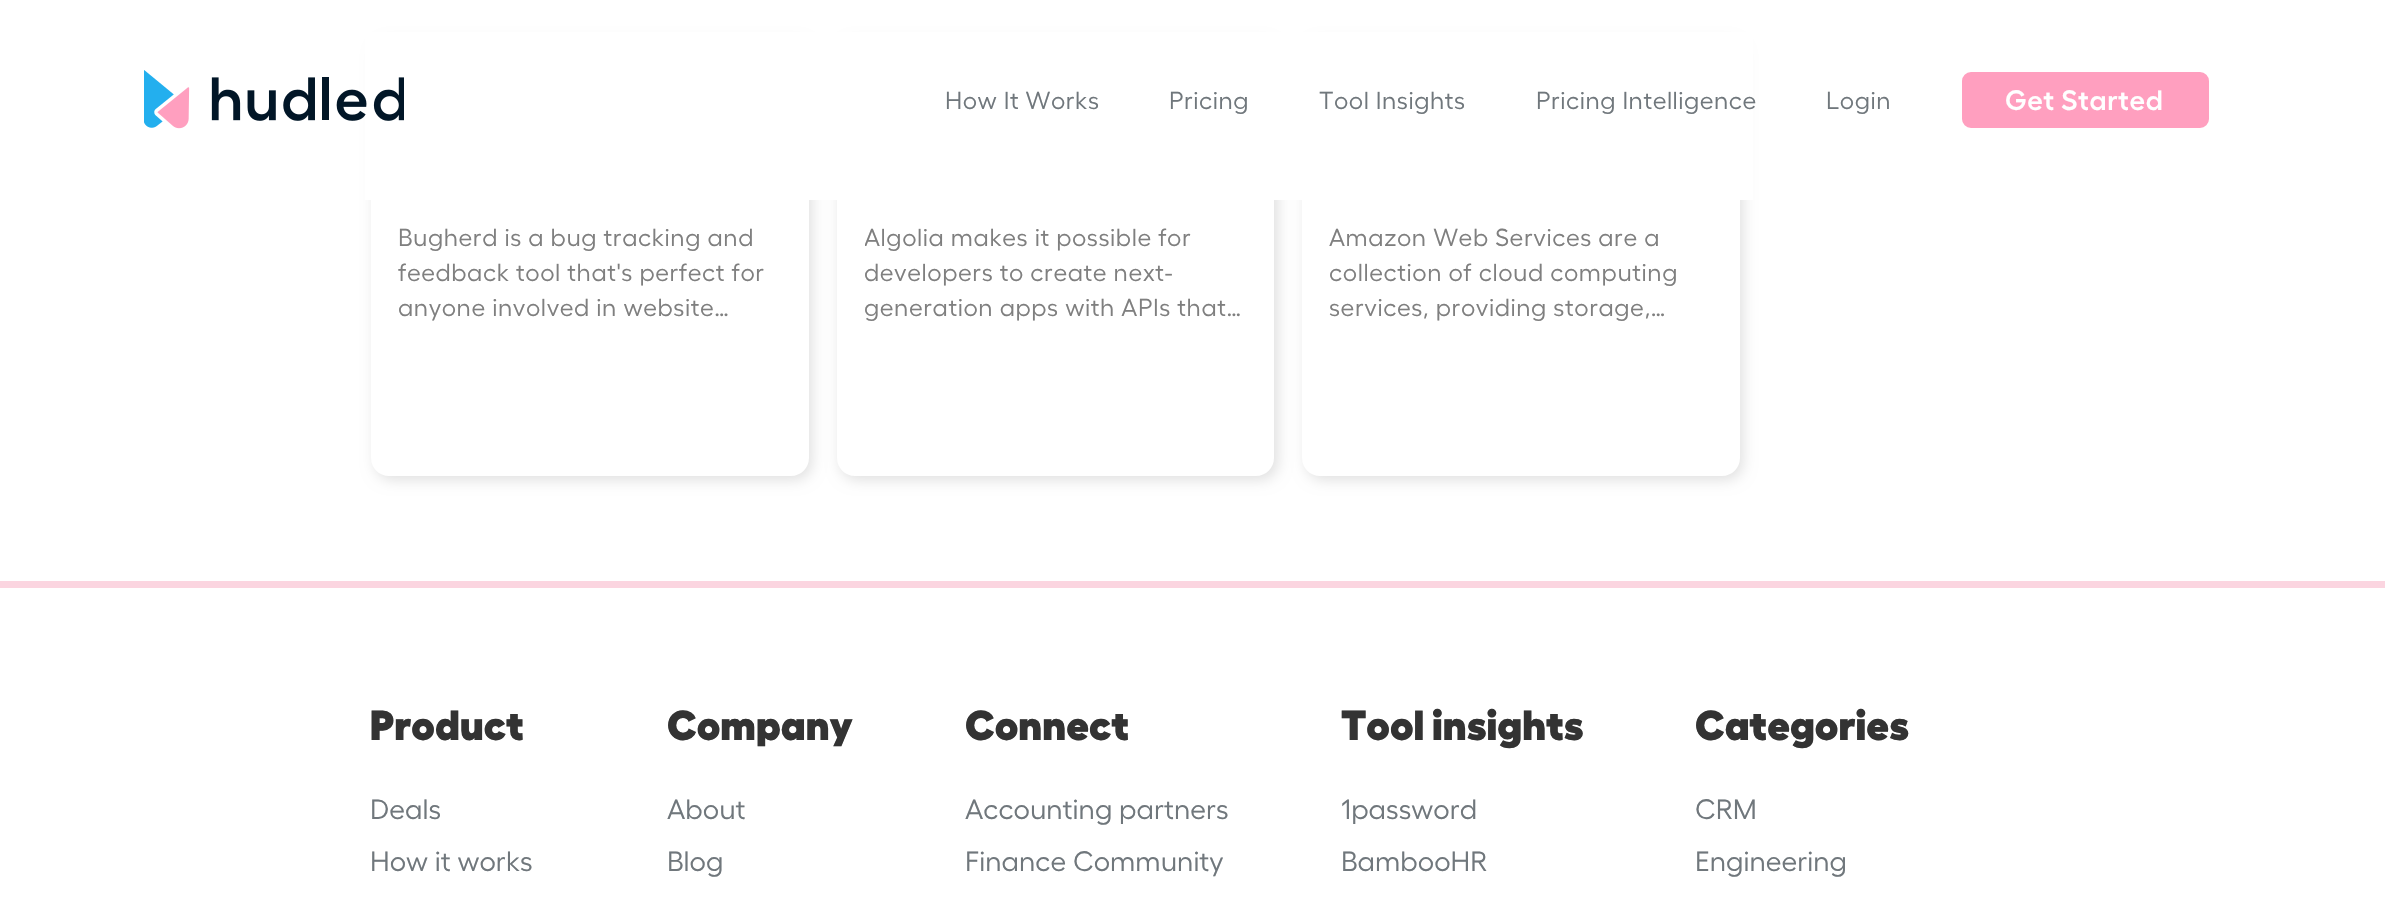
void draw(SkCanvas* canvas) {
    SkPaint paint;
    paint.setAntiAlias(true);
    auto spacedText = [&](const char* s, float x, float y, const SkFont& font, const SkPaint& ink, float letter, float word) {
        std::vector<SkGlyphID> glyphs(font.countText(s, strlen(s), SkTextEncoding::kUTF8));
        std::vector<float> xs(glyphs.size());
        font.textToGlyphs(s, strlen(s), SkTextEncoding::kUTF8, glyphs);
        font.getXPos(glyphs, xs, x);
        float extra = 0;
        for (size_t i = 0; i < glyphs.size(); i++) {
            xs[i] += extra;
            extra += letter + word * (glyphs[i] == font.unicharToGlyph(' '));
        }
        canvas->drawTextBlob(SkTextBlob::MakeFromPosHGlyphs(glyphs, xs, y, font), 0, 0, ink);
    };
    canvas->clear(0xFFFFFFFF);
    canvas->save();
    canvas->clipPath(SkPathBuilder(SkPathFillType::kEvenOdd).moveTo(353, 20).lineTo(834, 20).lineTo(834, 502).lineTo(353, 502).close().moveTo(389, 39).lineTo(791, 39).cubicTo(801, 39, 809, 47, 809, 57).lineTo(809, 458).cubicTo(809, 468, 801, 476, 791, 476).lineTo(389, 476).cubicTo(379, 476, 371, 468, 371, 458).lineTo(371, 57).cubicTo(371, 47, 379, 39, 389, 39).close().detach(), true);
    paint.setColor(0x1F000000);
    paint.setMaskFilter(SkMaskFilter::MakeBlur(kNormal_SkBlurStyle, 7));
    canvas->drawRoundRect(SkRect::MakeXYWH(375, 42, 437, 438), 18, 18, paint);
    paint.setMaskFilter(nullptr);
    canvas->restore();
    canvas->save();
    canvas->clipPath(SkPathBuilder(SkPathFillType::kEvenOdd).moveTo(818, 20).lineTo(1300, 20).lineTo(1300, 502).lineTo(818, 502).close().moveTo(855, 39).lineTo(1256, 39).cubicTo(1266, 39, 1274, 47, 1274, 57).lineTo(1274, 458).cubicTo(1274, 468, 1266, 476, 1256, 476).lineTo(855, 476).cubicTo(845, 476, 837, 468, 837, 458).lineTo(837, 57).cubicTo(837, 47, 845, 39, 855, 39).close().detach(), true);
    paint.setMaskFilter(SkMaskFilter::MakeBlur(kNormal_SkBlurStyle, 7));
    canvas->drawRoundRect(SkRect::MakeXYWH(840, 42, 438, 438), 18, 18, paint);
    paint.setMaskFilter(nullptr);
    canvas->restore();
    canvas->save();
    canvas->clipPath(SkPathBuilder(SkPathFillType::kEvenOdd).moveTo(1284, 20).lineTo(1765, 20).lineTo(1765, 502).lineTo(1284, 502).close().moveTo(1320, 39).lineTo(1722, 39).cubicTo(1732, 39, 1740, 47, 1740, 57).lineTo(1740, 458).cubicTo(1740, 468, 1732, 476, 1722, 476).lineTo(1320, 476).cubicTo(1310, 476, 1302, 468, 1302, 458).lineTo(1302, 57).cubicTo(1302, 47, 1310, 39, 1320, 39).close().detach(), true);
    paint.setMaskFilter(SkMaskFilter::MakeBlur(kNormal_SkBlurStyle, 7));
    canvas->drawRoundRect(SkRect::MakeXYWH(1306, 42, 437, 438), 18, 18, paint);
    paint.setMaskFilter(nullptr);
    canvas->restore();
    paint.setColor(0xFFFFFFFF);
    canvas->drawRect(SkRect::MakeXYWH(365, 32, 1388, 168), paint);
    canvas->drawImageRect(SkImages::DeferredFromEncodedData(SkData::MakeFromFileName("img1.png")), SkRect::MakeXYWH(144, 70, 260, 59), SkSamplingOptions());
    SkFont font1(fontMgr->matchFamilyStyle("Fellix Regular", SkFontStyle::Normal()), 24.5f);
    font1.setSubpixel(true);
    paint.setColor(0xFF70777C);
    spacedText("How It Works", 945, 109, font1, paint, 0.5f, 0);
    spacedText("Pricing", 1169, 109, font1, paint, 0.5f, 0);
    spacedText("Tool Insights", 1319, 109, font1, paint, 0.5f, 0);
    spacedText("Pricing Intelligence", 1536, 109, font1, paint, 0.5f, 0);
    spacedText("Login", 1826, 109, font1, paint, 0.5f, 0);
    paint.setColor(0xFFFF9FBF);
    canvas->drawRoundRect(SkRect::MakeXYWH(1963, 73, 245, 54), 8, 8, paint);
    paint.setStyle(SkPaint::kStroke_Style);
    paint.setStrokeWidth(2);
    canvas->drawRoundRect(SkRect::MakeXYWH(1963, 73, 245, 54), 8, 8, paint);
    SkFont font2(fontMgr->matchFamilyStyle("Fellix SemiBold", SkFontStyle(600, SkFontStyle::kNormal_Width, SkFontStyle::kUpright_Slant)), 28);
    font2.setSubpixel(true);
    paint.setStyle(SkPaint::kFill_Style);
    paint.setColor(0xFFFFFFFF);
    spacedText("Get Started", 2005, 110, font2, paint, 0.6f, 0);
    paint.setColor(0xFF7F7F7F);
    spacedText("Bugherd is a bug tracking and", 398, 246, font1, paint, 0.55f, 0);
    spacedText("feedback tool that's perfect for", 398, 281, font1, paint, 0.55f, 0);
    spacedText("anyone involved in website…", 398, 316, font1, paint, 0.55f, 0);
    canvas->save();
    canvas->clipRect(SkRect::MakeXYWH(865, 221, 381, 105));
    spacedText("Algolia makes it possible for", 864, 246, font1, paint, 0.55f, 0);
    spacedText("developers to create next-", 864, 281, font1, paint, 0.55f, 0);
    spacedText("generation apps with APIs that…", 864, 316, font1, paint, 0.55f, 0);
    canvas->restore();
    spacedText("Amazon Web Services are a", 1329, 246, font1, paint, 0.55f, 0);
    spacedText("collection of cloud computing", 1329, 281, font1, paint, 0.55f, 0);
    spacedText("services, providing storage,…", 1329, 316, font1, paint, 0.55f, 0);
    paint.setColor(0xFFFBD5E0);
    canvas->drawRect(SkRect::MakeXYWH(0, 581, 2385, 7), paint);
    SkFont font3(fontMgr->matchFamilyStyle("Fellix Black", SkFontStyle(900, SkFontStyle::kNormal_Width, SkFontStyle::kUpright_Slant)), 42);
    font3.setSubpixel(true);
    paint.setColor(0xFF333333);
    canvas->drawString("Product", 370, 740, font3, paint);
    SkFont font4(fontMgr->matchFamilyStyle("Fellix Regular", SkFontStyle::Normal()), 28);
    font4.setSubpixel(true);
    paint.setColor(0xFF70777C);
    canvas->drawString("Deals", 370, 819, font4, paint);
    canvas->drawString("How it works", 370, 871, font4, paint);
    paint.setColor(0xFF333333);
    canvas->drawString("Company", 667, 740, font3, paint);
    paint.setColor(0xFF70777C);
    canvas->drawString("About", 667, 819, font4, paint);
    canvas->drawString("Blog", 667, 871, font4, paint);
    paint.setColor(0xFF333333);
    canvas->drawString("Connect", 965, 740, font3, paint);
    paint.setColor(0xFF70777C);
    canvas->drawString("Accounting partners", 965, 819, font4, paint);
    canvas->drawString("Finance Community", 965, 871, font4, paint);
    paint.setColor(0xFF333333);
    canvas->drawString("Tool insights", 1341, 740, font3, paint);
    paint.setColor(0xFF70777C);
    canvas->drawString("1password", 1341, 819, font4, paint);
    canvas->drawString("BambooHR", 1341, 871, font4, paint);
    paint.setColor(0xFF333333);
    canvas->drawString("Categories", 1695, 740, font3, paint);
    paint.setColor(0xFF70777C);
    canvas->drawString("CRM", 1695, 819, font4, paint);
    canvas->drawString("Engineering", 1695, 871, font4, paint);
}
